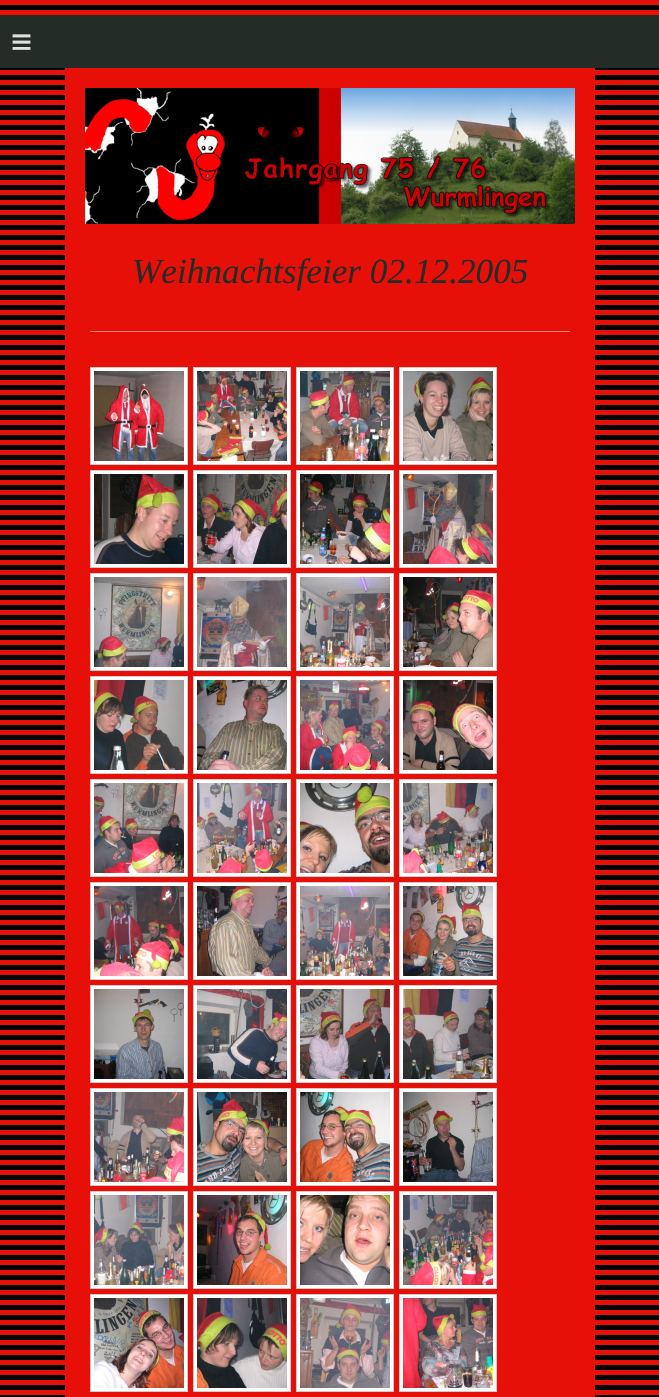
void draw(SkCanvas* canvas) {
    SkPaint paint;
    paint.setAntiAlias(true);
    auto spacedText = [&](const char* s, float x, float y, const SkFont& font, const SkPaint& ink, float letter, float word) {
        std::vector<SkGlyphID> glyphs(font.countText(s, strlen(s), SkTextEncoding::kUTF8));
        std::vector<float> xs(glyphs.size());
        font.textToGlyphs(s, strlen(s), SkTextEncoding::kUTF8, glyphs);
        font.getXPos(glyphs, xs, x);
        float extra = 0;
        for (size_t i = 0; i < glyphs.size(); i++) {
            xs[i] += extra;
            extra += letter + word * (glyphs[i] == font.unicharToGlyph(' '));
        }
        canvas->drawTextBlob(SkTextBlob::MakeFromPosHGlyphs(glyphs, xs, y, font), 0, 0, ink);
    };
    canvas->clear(0xFFE61008);
    canvas->drawImageRect(SkImages::DeferredFromEncodedData(SkData::MakeFromFileName("img1.png")), SkRect::MakeXYWH(0, 5, 659, 1392), SkSamplingOptions());
    paint.setColor(0xFF242C28);
    canvas->drawRect(SkRect::MakeXYWH(0, 15, 659, 53), paint);
    SkFont font1(fontMgr->matchFamilyStyle("Liberation Sans", SkFontStyle::Normal()), 36);
    font1.setSubpixel(true);
    paint.setColor(0xFFDEE1E0);
    spacedText("≡", 11, 54, font1, paint, 10, 0);
    paint.setColor(0xFFE61008);
    canvas->drawRect(SkRect::MakeXYWH(65, 68, 530, 1329), paint);
    canvas->drawImageRect(SkImages::DeferredFromEncodedData(SkData::MakeFromFileName("img2.png")), SkRect::MakeXYWH(85, 88, 490, 136), SkSamplingOptions());
    canvas->drawImageRect(SkImages::DeferredFromEncodedData(SkData::MakeFromFileName("img3.png")), SkRect::MakeXYWH(258, 126, 46, 12), SkSamplingOptions());
    SkFont font2(fontMgr->matchFamilyStyle("Liberation Serif", SkFontStyle::Italic()), 35.25f);
    font2.setSubpixel(true);
    paint.setColor(0xFF242C28);
    canvas->drawString("Weihnachtsfeier 02.12.2005", 132, 283, font2, paint);
    paint.setColor(0xFFF9837F);
    canvas->drawRect(SkRect::MakeXYWH(90, 331, 480, 1), paint);
    paint.setColor(0xFFFFFFFF);
    canvas->drawRect(SkRect::MakeXYWH(90.5f, 367.5f, 97, 97), paint);
    paint.setStyle(SkPaint::kStroke_Style);
    paint.setStrokeWidth(1);
    paint.setColor(0xFFCCCCCC);
    canvas->drawRect(SkRect::MakeXYWH(90.5f, 367.5f, 97, 97), paint);
    canvas->drawImageRect(SkImages::DeferredFromEncodedData(SkData::MakeFromFileName("img4.png")), SkRect::MakeXYWH(94, 371, 90, 90), SkSamplingOptions());
    paint.setStyle(SkPaint::kFill_Style);
    paint.setColor(0xFFFFFFFF);
    canvas->drawRect(SkRect::MakeXYWH(193.5f, 367.5f, 97, 97), paint);
    paint.setStyle(SkPaint::kStroke_Style);
    paint.setColor(0xFFCCCCCC);
    canvas->drawRect(SkRect::MakeXYWH(193.5f, 367.5f, 97, 97), paint);
    canvas->drawImageRect(SkImages::DeferredFromEncodedData(SkData::MakeFromFileName("img5.png")), SkRect::MakeXYWH(197, 371, 90, 90), SkSamplingOptions());
    paint.setStyle(SkPaint::kFill_Style);
    paint.setColor(0xFFFFFFFF);
    canvas->drawRect(SkRect::MakeXYWH(296.5f, 367.5f, 97, 97), paint);
    paint.setStyle(SkPaint::kStroke_Style);
    paint.setColor(0xFFCCCCCC);
    canvas->drawRect(SkRect::MakeXYWH(296.5f, 367.5f, 97, 97), paint);
    canvas->drawImageRect(SkImages::DeferredFromEncodedData(SkData::MakeFromFileName("img6.png")), SkRect::MakeXYWH(300, 371, 90, 90), SkSamplingOptions());
    paint.setStyle(SkPaint::kFill_Style);
    paint.setColor(0xFFFFFFFF);
    canvas->drawRect(SkRect::MakeXYWH(399.5f, 367.5f, 97, 97), paint);
    paint.setStyle(SkPaint::kStroke_Style);
    paint.setColor(0xFFCCCCCC);
    canvas->drawRect(SkRect::MakeXYWH(399.5f, 367.5f, 97, 97), paint);
    canvas->drawImageRect(SkImages::DeferredFromEncodedData(SkData::MakeFromFileName("img7.png")), SkRect::MakeXYWH(403, 371, 90, 90), SkSamplingOptions());
    paint.setStyle(SkPaint::kFill_Style);
    paint.setColor(0xFFFFFFFF);
    canvas->drawRect(SkRect::MakeXYWH(90.5f, 470.5f, 97, 97), paint);
    paint.setStyle(SkPaint::kStroke_Style);
    paint.setColor(0xFFCCCCCC);
    canvas->drawRect(SkRect::MakeXYWH(90.5f, 470.5f, 97, 97), paint);
    canvas->drawImageRect(SkImages::DeferredFromEncodedData(SkData::MakeFromFileName("img8.png")), SkRect::MakeXYWH(94, 474, 90, 90), SkSamplingOptions());
    paint.setStyle(SkPaint::kFill_Style);
    paint.setColor(0xFFFFFFFF);
    canvas->drawRect(SkRect::MakeXYWH(193.5f, 470.5f, 97, 97), paint);
    paint.setStyle(SkPaint::kStroke_Style);
    paint.setColor(0xFFCCCCCC);
    canvas->drawRect(SkRect::MakeXYWH(193.5f, 470.5f, 97, 97), paint);
    canvas->drawImageRect(SkImages::DeferredFromEncodedData(SkData::MakeFromFileName("img9.png")), SkRect::MakeXYWH(197, 474, 90, 90), SkSamplingOptions());
    paint.setStyle(SkPaint::kFill_Style);
    paint.setColor(0xFFFFFFFF);
    canvas->drawRect(SkRect::MakeXYWH(296.5f, 470.5f, 97, 97), paint);
    paint.setStyle(SkPaint::kStroke_Style);
    paint.setColor(0xFFCCCCCC);
    canvas->drawRect(SkRect::MakeXYWH(296.5f, 470.5f, 97, 97), paint);
    canvas->drawImageRect(SkImages::DeferredFromEncodedData(SkData::MakeFromFileName("img10.png")), SkRect::MakeXYWH(300, 474, 90, 90), SkSamplingOptions());
    paint.setStyle(SkPaint::kFill_Style);
    paint.setColor(0xFFFFFFFF);
    canvas->drawRect(SkRect::MakeXYWH(399.5f, 470.5f, 97, 97), paint);
    paint.setStyle(SkPaint::kStroke_Style);
    paint.setColor(0xFFCCCCCC);
    canvas->drawRect(SkRect::MakeXYWH(399.5f, 470.5f, 97, 97), paint);
    canvas->drawImageRect(SkImages::DeferredFromEncodedData(SkData::MakeFromFileName("img11.png")), SkRect::MakeXYWH(403, 474, 90, 90), SkSamplingOptions());
    paint.setStyle(SkPaint::kFill_Style);
    paint.setColor(0xFFFFFFFF);
    canvas->drawRect(SkRect::MakeXYWH(90.5f, 573.5f, 97, 97), paint);
    paint.setStyle(SkPaint::kStroke_Style);
    paint.setColor(0xFFCCCCCC);
    canvas->drawRect(SkRect::MakeXYWH(90.5f, 573.5f, 97, 97), paint);
    canvas->drawImageRect(SkImages::DeferredFromEncodedData(SkData::MakeFromFileName("img12.png")), SkRect::MakeXYWH(94, 577, 90, 90), SkSamplingOptions());
    paint.setStyle(SkPaint::kFill_Style);
    paint.setColor(0xFFFFFFFF);
    canvas->drawRect(SkRect::MakeXYWH(193.5f, 573.5f, 97, 97), paint);
    paint.setStyle(SkPaint::kStroke_Style);
    paint.setColor(0xFFCCCCCC);
    canvas->drawRect(SkRect::MakeXYWH(193.5f, 573.5f, 97, 97), paint);
    canvas->drawImageRect(SkImages::DeferredFromEncodedData(SkData::MakeFromFileName("img13.png")), SkRect::MakeXYWH(197, 577, 90, 90), SkSamplingOptions());
    paint.setStyle(SkPaint::kFill_Style);
    paint.setColor(0xFFFFFFFF);
    canvas->drawRect(SkRect::MakeXYWH(296.5f, 573.5f, 97, 97), paint);
    paint.setStyle(SkPaint::kStroke_Style);
    paint.setColor(0xFFCCCCCC);
    canvas->drawRect(SkRect::MakeXYWH(296.5f, 573.5f, 97, 97), paint);
    canvas->drawImageRect(SkImages::DeferredFromEncodedData(SkData::MakeFromFileName("img14.png")), SkRect::MakeXYWH(300, 577, 90, 90), SkSamplingOptions());
    paint.setStyle(SkPaint::kFill_Style);
    paint.setColor(0xFFFFFFFF);
    canvas->drawRect(SkRect::MakeXYWH(399.5f, 573.5f, 97, 97), paint);
    paint.setStyle(SkPaint::kStroke_Style);
    paint.setColor(0xFFCCCCCC);
    canvas->drawRect(SkRect::MakeXYWH(399.5f, 573.5f, 97, 97), paint);
    canvas->drawImageRect(SkImages::DeferredFromEncodedData(SkData::MakeFromFileName("img15.png")), SkRect::MakeXYWH(403, 577, 90, 90), SkSamplingOptions());
    paint.setStyle(SkPaint::kFill_Style);
    paint.setColor(0xFFFFFFFF);
    canvas->drawRect(SkRect::MakeXYWH(90.5f, 676.5f, 97, 97), paint);
    paint.setStyle(SkPaint::kStroke_Style);
    paint.setColor(0xFFCCCCCC);
    canvas->drawRect(SkRect::MakeXYWH(90.5f, 676.5f, 97, 97), paint);
    canvas->drawImageRect(SkImages::DeferredFromEncodedData(SkData::MakeFromFileName("img16.png")), SkRect::MakeXYWH(94, 680, 90, 90), SkSamplingOptions());
    paint.setStyle(SkPaint::kFill_Style);
    paint.setColor(0xFFFFFFFF);
    canvas->drawRect(SkRect::MakeXYWH(193.5f, 676.5f, 97, 97), paint);
    paint.setStyle(SkPaint::kStroke_Style);
    paint.setColor(0xFFCCCCCC);
    canvas->drawRect(SkRect::MakeXYWH(193.5f, 676.5f, 97, 97), paint);
    canvas->drawImageRect(SkImages::DeferredFromEncodedData(SkData::MakeFromFileName("img17.png")), SkRect::MakeXYWH(197, 680, 90, 90), SkSamplingOptions());
    paint.setStyle(SkPaint::kFill_Style);
    paint.setColor(0xFFFFFFFF);
    canvas->drawRect(SkRect::MakeXYWH(296.5f, 676.5f, 97, 97), paint);
    paint.setStyle(SkPaint::kStroke_Style);
    paint.setColor(0xFFCCCCCC);
    canvas->drawRect(SkRect::MakeXYWH(296.5f, 676.5f, 97, 97), paint);
    canvas->drawImageRect(SkImages::DeferredFromEncodedData(SkData::MakeFromFileName("img18.png")), SkRect::MakeXYWH(300, 680, 90, 90), SkSamplingOptions());
    paint.setStyle(SkPaint::kFill_Style);
    paint.setColor(0xFFFFFFFF);
    canvas->drawRect(SkRect::MakeXYWH(399.5f, 676.5f, 97, 97), paint);
    paint.setStyle(SkPaint::kStroke_Style);
    paint.setColor(0xFFCCCCCC);
    canvas->drawRect(SkRect::MakeXYWH(399.5f, 676.5f, 97, 97), paint);
    canvas->drawImageRect(SkImages::DeferredFromEncodedData(SkData::MakeFromFileName("img19.png")), SkRect::MakeXYWH(403, 680, 90, 90), SkSamplingOptions());
    paint.setStyle(SkPaint::kFill_Style);
    paint.setColor(0xFFFFFFFF);
    canvas->drawRect(SkRect::MakeXYWH(90.5f, 779.5f, 97, 97), paint);
    paint.setStyle(SkPaint::kStroke_Style);
    paint.setColor(0xFFCCCCCC);
    canvas->drawRect(SkRect::MakeXYWH(90.5f, 779.5f, 97, 97), paint);
    canvas->drawImageRect(SkImages::DeferredFromEncodedData(SkData::MakeFromFileName("img20.png")), SkRect::MakeXYWH(94, 783, 90, 90), SkSamplingOptions());
    paint.setStyle(SkPaint::kFill_Style);
    paint.setColor(0xFFFFFFFF);
    canvas->drawRect(SkRect::MakeXYWH(193.5f, 779.5f, 97, 97), paint);
    paint.setStyle(SkPaint::kStroke_Style);
    paint.setColor(0xFFCCCCCC);
    canvas->drawRect(SkRect::MakeXYWH(193.5f, 779.5f, 97, 97), paint);
    canvas->drawImageRect(SkImages::DeferredFromEncodedData(SkData::MakeFromFileName("img21.png")), SkRect::MakeXYWH(197, 783, 90, 90), SkSamplingOptions());
    paint.setStyle(SkPaint::kFill_Style);
    paint.setColor(0xFFFFFFFF);
    canvas->drawRect(SkRect::MakeXYWH(296.5f, 779.5f, 97, 97), paint);
    paint.setStyle(SkPaint::kStroke_Style);
    paint.setColor(0xFFCCCCCC);
    canvas->drawRect(SkRect::MakeXYWH(296.5f, 779.5f, 97, 97), paint);
    canvas->drawImageRect(SkImages::DeferredFromEncodedData(SkData::MakeFromFileName("img22.png")), SkRect::MakeXYWH(300, 783, 90, 90), SkSamplingOptions());
    paint.setStyle(SkPaint::kFill_Style);
    paint.setColor(0xFFFFFFFF);
    canvas->drawRect(SkRect::MakeXYWH(399.5f, 779.5f, 97, 97), paint);
    paint.setStyle(SkPaint::kStroke_Style);
    paint.setColor(0xFFCCCCCC);
    canvas->drawRect(SkRect::MakeXYWH(399.5f, 779.5f, 97, 97), paint);
    canvas->drawImageRect(SkImages::DeferredFromEncodedData(SkData::MakeFromFileName("img23.png")), SkRect::MakeXYWH(403, 783, 90, 90), SkSamplingOptions());
    paint.setStyle(SkPaint::kFill_Style);
    paint.setColor(0xFFFFFFFF);
    canvas->drawRect(SkRect::MakeXYWH(90.5f, 882.5f, 97, 97), paint);
    paint.setStyle(SkPaint::kStroke_Style);
    paint.setColor(0xFFCCCCCC);
    canvas->drawRect(SkRect::MakeXYWH(90.5f, 882.5f, 97, 97), paint);
    canvas->drawImageRect(SkImages::DeferredFromEncodedData(SkData::MakeFromFileName("img24.png")), SkRect::MakeXYWH(94, 886, 90, 90), SkSamplingOptions());
    paint.setStyle(SkPaint::kFill_Style);
    paint.setColor(0xFFFFFFFF);
    canvas->drawRect(SkRect::MakeXYWH(193.5f, 882.5f, 97, 97), paint);
    paint.setStyle(SkPaint::kStroke_Style);
    paint.setColor(0xFFCCCCCC);
    canvas->drawRect(SkRect::MakeXYWH(193.5f, 882.5f, 97, 97), paint);
    canvas->drawImageRect(SkImages::DeferredFromEncodedData(SkData::MakeFromFileName("img25.png")), SkRect::MakeXYWH(197, 886, 90, 90), SkSamplingOptions());
    paint.setStyle(SkPaint::kFill_Style);
    paint.setColor(0xFFFFFFFF);
    canvas->drawRect(SkRect::MakeXYWH(296.5f, 882.5f, 97, 97), paint);
    paint.setStyle(SkPaint::kStroke_Style);
    paint.setColor(0xFFCCCCCC);
    canvas->drawRect(SkRect::MakeXYWH(296.5f, 882.5f, 97, 97), paint);
    canvas->drawImageRect(SkImages::DeferredFromEncodedData(SkData::MakeFromFileName("img26.png")), SkRect::MakeXYWH(300, 886, 90, 90), SkSamplingOptions());
    paint.setStyle(SkPaint::kFill_Style);
    paint.setColor(0xFFFFFFFF);
    canvas->drawRect(SkRect::MakeXYWH(399.5f, 882.5f, 97, 97), paint);
    paint.setStyle(SkPaint::kStroke_Style);
    paint.setColor(0xFFCCCCCC);
    canvas->drawRect(SkRect::MakeXYWH(399.5f, 882.5f, 97, 97), paint);
    canvas->drawImageRect(SkImages::DeferredFromEncodedData(SkData::MakeFromFileName("img27.png")), SkRect::MakeXYWH(403, 886, 90, 90), SkSamplingOptions());
    paint.setStyle(SkPaint::kFill_Style);
    paint.setColor(0xFFFFFFFF);
    canvas->drawRect(SkRect::MakeXYWH(90.5f, 985.5f, 97, 97), paint);
    paint.setStyle(SkPaint::kStroke_Style);
    paint.setColor(0xFFCCCCCC);
    canvas->drawRect(SkRect::MakeXYWH(90.5f, 985.5f, 97, 97), paint);
    canvas->drawImageRect(SkImages::DeferredFromEncodedData(SkData::MakeFromFileName("img28.png")), SkRect::MakeXYWH(94, 989, 90, 90), SkSamplingOptions());
    paint.setStyle(SkPaint::kFill_Style);
    paint.setColor(0xFFFFFFFF);
    canvas->drawRect(SkRect::MakeXYWH(193.5f, 985.5f, 97, 97), paint);
    paint.setStyle(SkPaint::kStroke_Style);
    paint.setColor(0xFFCCCCCC);
    canvas->drawRect(SkRect::MakeXYWH(193.5f, 985.5f, 97, 97), paint);
    canvas->drawImageRect(SkImages::DeferredFromEncodedData(SkData::MakeFromFileName("img29.png")), SkRect::MakeXYWH(197, 989, 90, 90), SkSamplingOptions());
    paint.setStyle(SkPaint::kFill_Style);
    paint.setColor(0xFFFFFFFF);
    canvas->drawRect(SkRect::MakeXYWH(296.5f, 985.5f, 97, 97), paint);
    paint.setStyle(SkPaint::kStroke_Style);
    paint.setColor(0xFFCCCCCC);
    canvas->drawRect(SkRect::MakeXYWH(296.5f, 985.5f, 97, 97), paint);
    canvas->drawImageRect(SkImages::DeferredFromEncodedData(SkData::MakeFromFileName("img30.png")), SkRect::MakeXYWH(300, 989, 90, 90), SkSamplingOptions());
    paint.setStyle(SkPaint::kFill_Style);
    paint.setColor(0xFFFFFFFF);
    canvas->drawRect(SkRect::MakeXYWH(399.5f, 985.5f, 97, 97), paint);
    paint.setStyle(SkPaint::kStroke_Style);
    paint.setColor(0xFFCCCCCC);
    canvas->drawRect(SkRect::MakeXYWH(399.5f, 985.5f, 97, 97), paint);
    canvas->drawImageRect(SkImages::DeferredFromEncodedData(SkData::MakeFromFileName("img31.png")), SkRect::MakeXYWH(403, 989, 90, 90), SkSamplingOptions());
    paint.setStyle(SkPaint::kFill_Style);
    paint.setColor(0xFFFFFFFF);
    canvas->drawRect(SkRect::MakeXYWH(90.5f, 1088.5f, 97, 97), paint);
    paint.setStyle(SkPaint::kStroke_Style);
    paint.setColor(0xFFCCCCCC);
    canvas->drawRect(SkRect::MakeXYWH(90.5f, 1088.5f, 97, 97), paint);
    canvas->drawImageRect(SkImages::DeferredFromEncodedData(SkData::MakeFromFileName("img32.png")), SkRect::MakeXYWH(94, 1092, 90, 90), SkSamplingOptions());
    paint.setStyle(SkPaint::kFill_Style);
    paint.setColor(0xFFFFFFFF);
    canvas->drawRect(SkRect::MakeXYWH(193.5f, 1088.5f, 97, 97), paint);
    paint.setStyle(SkPaint::kStroke_Style);
    paint.setColor(0xFFCCCCCC);
    canvas->drawRect(SkRect::MakeXYWH(193.5f, 1088.5f, 97, 97), paint);
    canvas->drawImageRect(SkImages::DeferredFromEncodedData(SkData::MakeFromFileName("img33.png")), SkRect::MakeXYWH(197, 1092, 90, 90), SkSamplingOptions());
    paint.setStyle(SkPaint::kFill_Style);
    paint.setColor(0xFFFFFFFF);
    canvas->drawRect(SkRect::MakeXYWH(296.5f, 1088.5f, 97, 97), paint);
    paint.setStyle(SkPaint::kStroke_Style);
    paint.setColor(0xFFCCCCCC);
    canvas->drawRect(SkRect::MakeXYWH(296.5f, 1088.5f, 97, 97), paint);
    canvas->drawImageRect(SkImages::DeferredFromEncodedData(SkData::MakeFromFileName("img34.png")), SkRect::MakeXYWH(300, 1092, 90, 90), SkSamplingOptions());
    paint.setStyle(SkPaint::kFill_Style);
    paint.setColor(0xFFFFFFFF);
    canvas->drawRect(SkRect::MakeXYWH(399.5f, 1088.5f, 97, 97), paint);
    paint.setStyle(SkPaint::kStroke_Style);
    paint.setColor(0xFFCCCCCC);
    canvas->drawRect(SkRect::MakeXYWH(399.5f, 1088.5f, 97, 97), paint);
    canvas->drawImageRect(SkImages::DeferredFromEncodedData(SkData::MakeFromFileName("img35.png")), SkRect::MakeXYWH(403, 1092, 90, 90), SkSamplingOptions());
    paint.setStyle(SkPaint::kFill_Style);
    paint.setColor(0xFFFFFFFF);
    canvas->drawRect(SkRect::MakeXYWH(90.5f, 1191.5f, 97, 97), paint);
    paint.setStyle(SkPaint::kStroke_Style);
    paint.setColor(0xFFCCCCCC);
    canvas->drawRect(SkRect::MakeXYWH(90.5f, 1191.5f, 97, 97), paint);
    canvas->drawImageRect(SkImages::DeferredFromEncodedData(SkData::MakeFromFileName("img36.png")), SkRect::MakeXYWH(94, 1195, 90, 90), SkSamplingOptions());
    paint.setStyle(SkPaint::kFill_Style);
    paint.setColor(0xFFFFFFFF);
    canvas->drawRect(SkRect::MakeXYWH(193.5f, 1191.5f, 97, 97), paint);
    paint.setStyle(SkPaint::kStroke_Style);
    paint.setColor(0xFFCCCCCC);
    canvas->drawRect(SkRect::MakeXYWH(193.5f, 1191.5f, 97, 97), paint);
    canvas->drawImageRect(SkImages::DeferredFromEncodedData(SkData::MakeFromFileName("img37.png")), SkRect::MakeXYWH(197, 1195, 90, 90), SkSamplingOptions());
    paint.setStyle(SkPaint::kFill_Style);
    paint.setColor(0xFFFFFFFF);
    canvas->drawRect(SkRect::MakeXYWH(296.5f, 1191.5f, 97, 97), paint);
    paint.setStyle(SkPaint::kStroke_Style);
    paint.setColor(0xFFCCCCCC);
    canvas->drawRect(SkRect::MakeXYWH(296.5f, 1191.5f, 97, 97), paint);
    canvas->drawImageRect(SkImages::DeferredFromEncodedData(SkData::MakeFromFileName("img38.png")), SkRect::MakeXYWH(300, 1195, 90, 90), SkSamplingOptions());
    paint.setStyle(SkPaint::kFill_Style);
    paint.setColor(0xFFFFFFFF);
    canvas->drawRect(SkRect::MakeXYWH(399.5f, 1191.5f, 97, 97), paint);
    paint.setStyle(SkPaint::kStroke_Style);
    paint.setColor(0xFFCCCCCC);
    canvas->drawRect(SkRect::MakeXYWH(399.5f, 1191.5f, 97, 97), paint);
    canvas->drawImageRect(SkImages::DeferredFromEncodedData(SkData::MakeFromFileName("img39.png")), SkRect::MakeXYWH(403, 1195, 90, 90), SkSamplingOptions());
    paint.setStyle(SkPaint::kFill_Style);
    paint.setColor(0xFFFFFFFF);
    canvas->drawRect(SkRect::MakeXYWH(90.5f, 1294.5f, 97, 97), paint);
    paint.setStyle(SkPaint::kStroke_Style);
    paint.setColor(0xFFCCCCCC);
    canvas->drawRect(SkRect::MakeXYWH(90.5f, 1294.5f, 97, 97), paint);
    canvas->drawImageRect(SkImages::DeferredFromEncodedData(SkData::MakeFromFileName("img40.png")), SkRect::MakeXYWH(94, 1298, 90, 90), SkSamplingOptions());
    paint.setStyle(SkPaint::kFill_Style);
    paint.setColor(0xFFFFFFFF);
    canvas->drawRect(SkRect::MakeXYWH(193.5f, 1294.5f, 97, 97), paint);
    paint.setStyle(SkPaint::kStroke_Style);
    paint.setColor(0xFFCCCCCC);
    canvas->drawRect(SkRect::MakeXYWH(193.5f, 1294.5f, 97, 97), paint);
    canvas->drawImageRect(SkImages::DeferredFromEncodedData(SkData::MakeFromFileName("img41.png")), SkRect::MakeXYWH(197, 1298, 90, 90), SkSamplingOptions());
    paint.setStyle(SkPaint::kFill_Style);
    paint.setColor(0xFFFFFFFF);
    canvas->drawRect(SkRect::MakeXYWH(296.5f, 1294.5f, 97, 97), paint);
    paint.setStyle(SkPaint::kStroke_Style);
    paint.setColor(0xFFCCCCCC);
    canvas->drawRect(SkRect::MakeXYWH(296.5f, 1294.5f, 97, 97), paint);
    canvas->drawImageRect(SkImages::DeferredFromEncodedData(SkData::MakeFromFileName("img42.png")), SkRect::MakeXYWH(300, 1298, 90, 90), SkSamplingOptions());
    paint.setStyle(SkPaint::kFill_Style);
    paint.setColor(0xFFFFFFFF);
    canvas->drawRect(SkRect::MakeXYWH(399.5f, 1294.5f, 97, 97), paint);
    paint.setStyle(SkPaint::kStroke_Style);
    paint.setColor(0xFFCCCCCC);
    canvas->drawRect(SkRect::MakeXYWH(399.5f, 1294.5f, 97, 97), paint);
    canvas->drawImageRect(SkImages::DeferredFromEncodedData(SkData::MakeFromFileName("img43.png")), SkRect::MakeXYWH(403, 1298, 90, 90), SkSamplingOptions());
}
